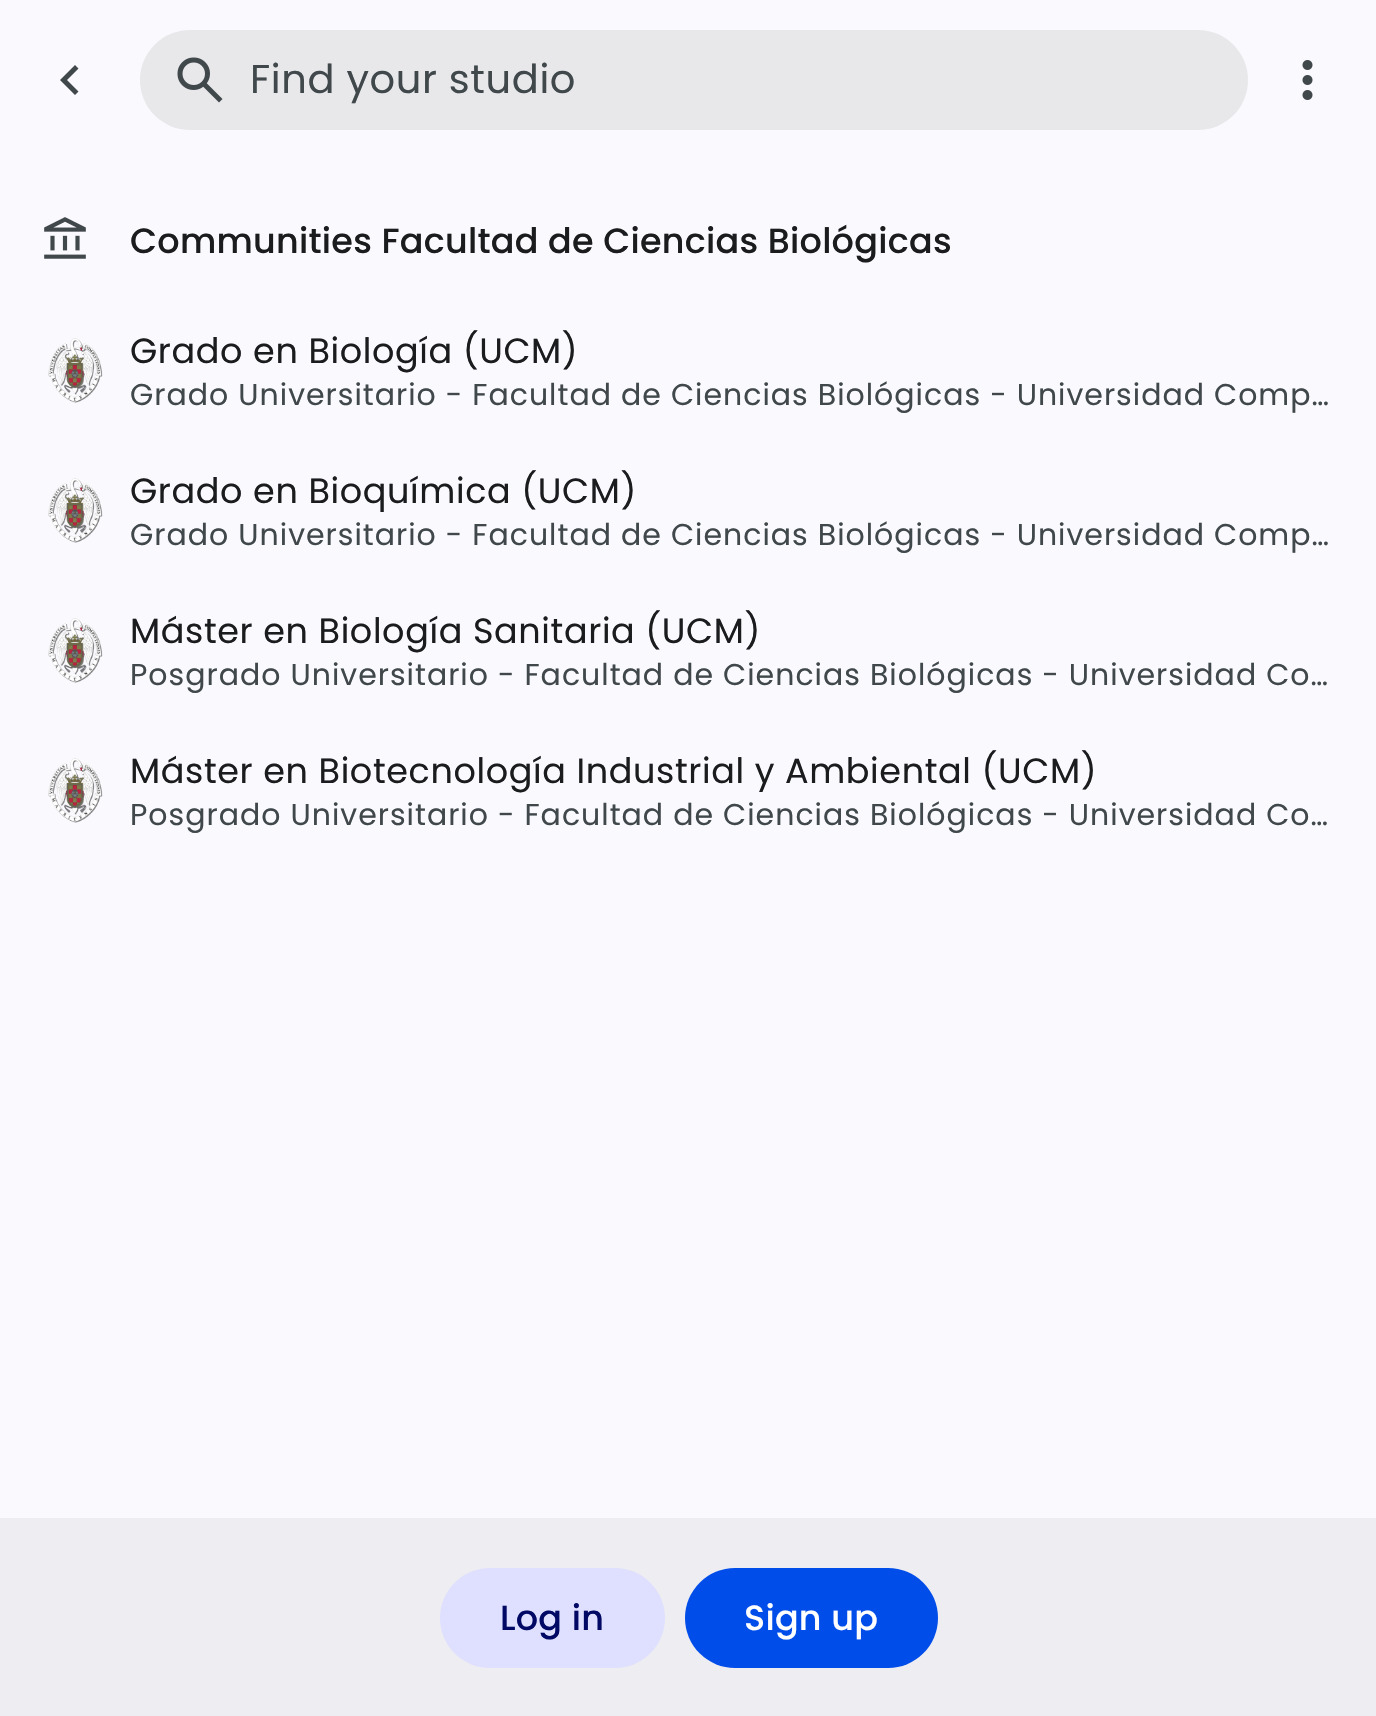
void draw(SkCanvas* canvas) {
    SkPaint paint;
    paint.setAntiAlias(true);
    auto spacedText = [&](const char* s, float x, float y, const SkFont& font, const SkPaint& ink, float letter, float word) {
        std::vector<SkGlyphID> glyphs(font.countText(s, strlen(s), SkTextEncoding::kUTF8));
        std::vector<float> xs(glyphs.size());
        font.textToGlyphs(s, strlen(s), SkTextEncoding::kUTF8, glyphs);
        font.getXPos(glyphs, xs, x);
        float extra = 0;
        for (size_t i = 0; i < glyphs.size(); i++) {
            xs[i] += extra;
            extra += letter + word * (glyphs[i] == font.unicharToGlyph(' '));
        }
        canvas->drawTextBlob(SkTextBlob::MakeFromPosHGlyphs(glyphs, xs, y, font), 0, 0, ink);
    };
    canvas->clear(0xFFFAF9FD);
    paint.setColor(0xFF40484C);
    canvas->drawPath(SkPathBuilder().moveTo(75, 95).lineTo(60, 80).lineTo(75, 65).lineTo(78.5f, 68.5f).lineTo(67, 80).lineTo(78.5f, 91.5f).close().detach(), paint);
    paint.setColor(0xFFE8E8EB);
    canvas->drawRoundRect(SkRect::MakeXYWH(140, 30, 1108, 100), 50, 50, paint);
    canvas->drawImageRect(SkImages::DeferredFromEncodedData(SkData::MakeFromFileName("img1.png")), SkRect::MakeXYWH(177, 57, 46, 46), SkSamplingOptions());
    SkFont font1(fontMgr->matchFamilyStyle("Poppins", SkFontStyle::Normal()), 40);
    font1.setSubpixel(true);
    paint.setColor(0xFF40484C);
    spacedText("Find your studio", 250, 93, font1, paint, 0.62f, 0);
    canvas->drawImageRect(SkImages::DeferredFromEncodedData(SkData::MakeFromFileName("img2.png")), SkRect::MakeXYWH(1302, 60, 11, 40), SkSamplingOptions());
    canvas->drawImageRect(SkImages::DeferredFromEncodedData(SkData::MakeFromFileName("img3.png")), SkRect::MakeXYWH(44, 217, 42, 42), SkSamplingOptions());
    SkFont font2(fontMgr->matchFamilyStyle("Poppins", SkFontStyle(500, SkFontStyle::kNormal_Width, SkFontStyle::kUpright_Slant)), 35);
    font2.setSubpixel(true);
    paint.setColor(0xFF1A1C1E);
    spacedText("Communities Facultad de Ciencias Biológicas", 130, 253, font2, paint, 0.25f, 0);
    canvas->drawImageRect(SkImages::DeferredFromEncodedData(SkData::MakeFromFileName("img4.png")), SkRect::MakeXYWH(48, 338, 55, 65), SkSamplingOptions());
    SkFont font3(fontMgr->matchFamilyStyle("Poppins", SkFontStyle::Normal()), 35);
    font3.setSubpixel(true);
    spacedText("Grado en Biología (UCM)", 130, 363, font3, paint, 0.62f, 0);
    SkFont font4(fontMgr->matchFamilyStyle("Poppins", SkFontStyle::Normal()), 30);
    font4.setSubpixel(true);
    paint.setColor(0xFF40484C);
    spacedText("Grado Universitario - Facultad de Ciencias Biológicas - Universidad Comp…", 130, 405, font4, paint, 1, 0);
    canvas->drawImageRect(SkImages::DeferredFromEncodedData(SkData::MakeFromFileName("img4.png")), SkRect::MakeXYWH(48, 478, 55, 65), SkSamplingOptions());
    paint.setColor(0xFF1A1C1E);
    spacedText("Grado en Bioquímica (UCM)", 130, 503, font3, paint, 0.62f, 0);
    paint.setColor(0xFF40484C);
    spacedText("Grado Universitario - Facultad de Ciencias Biológicas - Universidad Comp…", 130, 545, font4, paint, 1, 0);
    canvas->drawImageRect(SkImages::DeferredFromEncodedData(SkData::MakeFromFileName("img4.png")), SkRect::MakeXYWH(48, 618, 55, 65), SkSamplingOptions());
    paint.setColor(0xFF1A1C1E);
    spacedText("Máster en Biología Sanitaria (UCM)", 130, 643, font3, paint, 0.62f, 0);
    paint.setColor(0xFF40484C);
    spacedText("Posgrado Universitario - Facultad de Ciencias Biológicas - Universidad Co…", 130, 685, font4, paint, 1, 0);
    canvas->drawImageRect(SkImages::DeferredFromEncodedData(SkData::MakeFromFileName("img4.png")), SkRect::MakeXYWH(48, 758, 55, 65), SkSamplingOptions());
    paint.setColor(0xFF1A1C1E);
    spacedText("Máster en Biotecnología Industrial y Ambiental (UCM)", 130, 783, font3, paint, 0.62f, 0);
    paint.setColor(0xFF40484C);
    spacedText("Posgrado Universitario - Facultad de Ciencias Biológicas - Universidad Co…", 130, 825, font4, paint, 1, 0);
    paint.setColor(0xFFEEEDF1);
    canvas->drawRect(SkRect::MakeXYWH(0, 1518, 1376, 198), paint);
    paint.setColor(0xFFDFE0FF);
    canvas->drawRoundRect(SkRect::MakeXYWH(440, 1568, 225, 100), 50, 50, paint);
    paint.setColor(0xFF010965);
    spacedText("Log in", 500, 1630, font2, paint, 0.25f, 0);
    paint.setColor(0xFF004DEA);
    canvas->drawRoundRect(SkRect::MakeXYWH(685, 1568, 253, 100), 50, 50, paint);
    paint.setColor(0xFFFFFFFF);
    spacedText("Sign up", 744, 1630, font2, paint, 0.25f, 0);
}
